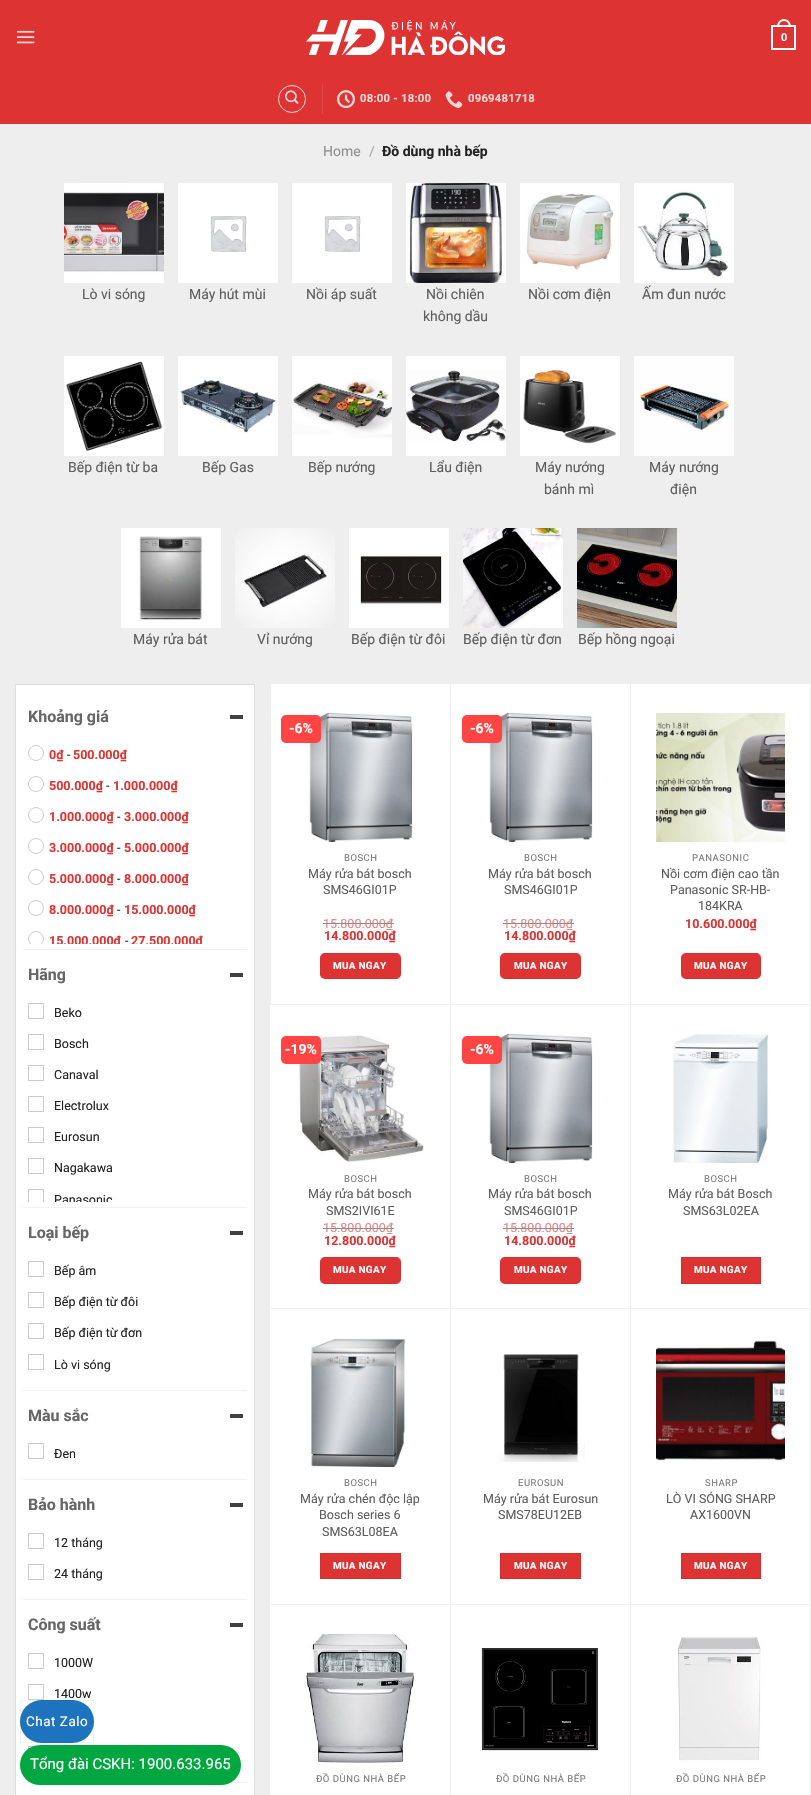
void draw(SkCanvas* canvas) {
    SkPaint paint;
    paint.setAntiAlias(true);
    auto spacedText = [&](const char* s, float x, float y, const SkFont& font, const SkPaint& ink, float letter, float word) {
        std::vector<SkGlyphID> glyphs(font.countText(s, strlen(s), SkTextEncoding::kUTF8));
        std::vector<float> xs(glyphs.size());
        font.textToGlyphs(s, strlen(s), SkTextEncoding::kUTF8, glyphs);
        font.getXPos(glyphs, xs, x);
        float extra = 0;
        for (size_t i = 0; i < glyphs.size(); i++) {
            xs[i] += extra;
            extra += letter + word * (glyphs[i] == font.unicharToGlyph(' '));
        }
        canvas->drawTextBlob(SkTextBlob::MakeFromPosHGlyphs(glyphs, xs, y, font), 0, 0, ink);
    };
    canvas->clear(0xFFEEEEEE);
    paint.setColor(0xFFDD3333);
    canvas->drawRect(SkRect::MakeXYWH(0, 0, 811, 124), paint);
    canvas->drawImageRect(SkImages::DeferredFromEncodedData(SkData::MakeFromFileName("img1.png")), SkRect::MakeXYWH(16, 30, 19, 14), SkSamplingOptions());
    canvas->drawImageRect(SkImages::DeferredFromEncodedData(SkData::MakeFromFileName("img2.png")), SkRect::MakeXYWH(306, 20, 199, 35), SkSamplingOptions());
    paint.setStyle(SkPaint::kStroke_Style);
    paint.setStrokeWidth(2);
    paint.setColor(0xFFFFFFFF);
    canvas->drawRect(SkRect::MakeXYWH(772, 26, 23, 23), paint);
    paint.setStyle(SkPaint::kFill_Style);
    canvas->drawPath(SkPathBuilder(SkPathFillType::kEvenOdd).moveTo(784, 19).cubicTo(788.5f, 19, 791, 23, 791, 27).lineTo(777, 27).cubicTo(777, 23, 779.5f, 19, 784, 19).close().moveTo(784, 21).cubicTo(787.5f, 21, 789, 24, 789, 27).lineTo(779, 27).cubicTo(779, 24, 780.5f, 21, 784, 21).close().detach(), paint);
    SkFont font1(fontMgr->matchFamilyStyle("Liberation Sans", SkFontStyle::Bold()), 11.25f);
    font1.setSubpixel(true);
    canvas->drawString("0", 781, 41, font1, paint);
    paint.setStyle(SkPaint::kStroke_Style);
    paint.setStrokeWidth(1);
    paint.setColor(0xFFF8D6D6);
    canvas->drawCircle(292, 99, 13.5f, paint);
    canvas->drawImageRect(SkImages::DeferredFromEncodedData(SkData::MakeFromFileName("img3.png")), SkRect::MakeXYWH(285, 90, 14, 14), SkSamplingOptions());
    paint.setStyle(SkPaint::kFill_Style);
    paint.setColor(0xFFE04747);
    canvas->drawRect(SkRect::MakeXYWH(322, 84, 1, 30), paint);
    canvas->drawImageRect(SkImages::DeferredFromEncodedData(SkData::MakeFromFileName("img4.png")), SkRect::MakeXYWH(337, 90, 18, 19), SkSamplingOptions());
    SkFont font2(fontMgr->matchFamilyStyle("Roboto", SkFontStyle::Bold()), 11.25f);
    font2.setSubpixel(true);
    paint.setColor(0xFFF8D6D6);
    spacedText("08:00 - 18:00", 360, 102, font2, paint, 0.25f, 0);
    canvas->drawImageRect(SkImages::DeferredFromEncodedData(SkData::MakeFromFileName("img5.png")), SkRect::MakeXYWH(445, 91, 18, 18), SkSamplingOptions());
    spacedText("0969481718", 468, 102, font2, paint, 0.25f, 0);
    SkFont font3(fontMgr->matchFamilyStyle("Roboto", SkFontStyle::Normal()), 14);
    font3.setSubpixel(true);
    paint.setColor(0xFF8F8F8F);
    canvas->drawString("Home", 323, 156, font3, paint);
    paint.setColor(0xFFA7A7A7);
    canvas->drawString("/", 369, 156, font3, paint);
    SkFont font4(fontMgr->matchFamilyStyle("Roboto", SkFontStyle::Bold()), 14);
    font4.setSubpixel(true);
    paint.setColor(0xFF222222);
    canvas->drawString("Đồ dùng nhà bếp", 382, 156, font4, paint);
    canvas->drawImageRect(SkImages::DeferredFromEncodedData(SkData::MakeFromFileName("img6.png")), SkRect::MakeXYWH(64, 183, 100, 100), SkSamplingOptions());
    paint.setColor(0xFF5E5E5E);
    canvas->drawString("Lò vi sóng", 82, 299, font3, paint);
    canvas->drawImageRect(SkImages::DeferredFromEncodedData(SkData::MakeFromFileName("img7.png")), SkRect::MakeXYWH(178, 183, 100, 100), SkSamplingOptions());
    canvas->drawString("Máy hút mùi", 189, 299, font3, paint);
    canvas->drawImageRect(SkImages::DeferredFromEncodedData(SkData::MakeFromFileName("img7.png")), SkRect::MakeXYWH(292, 183, 100, 100), SkSamplingOptions());
    canvas->drawString("Nồi áp suất", 306, 299, font3, paint);
    canvas->drawImageRect(SkImages::DeferredFromEncodedData(SkData::MakeFromFileName("img8.png")), SkRect::MakeXYWH(406, 183, 100, 100), SkSamplingOptions());
    canvas->drawString("Nồi chiên", 426, 299, font3, paint);
    canvas->drawString("không dầu", 423, 321, font3, paint);
    canvas->drawImageRect(SkImages::DeferredFromEncodedData(SkData::MakeFromFileName("img9.png")), SkRect::MakeXYWH(520, 183, 100, 100), SkSamplingOptions());
    canvas->drawString("Nồi cơm điện", 528, 299, font3, paint);
    canvas->drawImageRect(SkImages::DeferredFromEncodedData(SkData::MakeFromFileName("img10.png")), SkRect::MakeXYWH(634, 183, 100, 100), SkSamplingOptions());
    canvas->drawString("Ấm đun nước", 642, 299, font3, paint);
    canvas->drawImageRect(SkImages::DeferredFromEncodedData(SkData::MakeFromFileName("img11.png")), SkRect::MakeXYWH(64, 356, 100, 100), SkSamplingOptions());
    canvas->drawString("Bếp điện từ ba", 68, 472, font3, paint);
    canvas->drawImageRect(SkImages::DeferredFromEncodedData(SkData::MakeFromFileName("img12.png")), SkRect::MakeXYWH(178, 356, 100, 100), SkSamplingOptions());
    canvas->drawString("Bếp Gas", 202, 472, font3, paint);
    canvas->drawImageRect(SkImages::DeferredFromEncodedData(SkData::MakeFromFileName("img13.png")), SkRect::MakeXYWH(292, 356, 100, 100), SkSamplingOptions());
    canvas->drawString("Bếp nướng", 308, 472, font3, paint);
    canvas->drawImageRect(SkImages::DeferredFromEncodedData(SkData::MakeFromFileName("img14.png")), SkRect::MakeXYWH(406, 356, 100, 100), SkSamplingOptions());
    canvas->drawString("Lẩu điện", 429, 472, font3, paint);
    canvas->drawImageRect(SkImages::DeferredFromEncodedData(SkData::MakeFromFileName("img15.png")), SkRect::MakeXYWH(520, 356, 100, 100), SkSamplingOptions());
    canvas->drawString("Máy nướng", 535, 472, font3, paint);
    canvas->drawString("bánh mì", 544, 494, font3, paint);
    canvas->drawImageRect(SkImages::DeferredFromEncodedData(SkData::MakeFromFileName("img16.png")), SkRect::MakeXYWH(634, 356, 100, 100), SkSamplingOptions());
    canvas->drawString("Máy nướng", 649, 472, font3, paint);
    canvas->drawString("điện", 670, 494, font3, paint);
    canvas->drawImageRect(SkImages::DeferredFromEncodedData(SkData::MakeFromFileName("img17.png")), SkRect::MakeXYWH(121, 528, 100, 100), SkSamplingOptions());
    canvas->drawString("Máy rửa bát", 133, 644, font3, paint);
    canvas->drawImageRect(SkImages::DeferredFromEncodedData(SkData::MakeFromFileName("img18.png")), SkRect::MakeXYWH(235, 528, 100, 100), SkSamplingOptions());
    canvas->drawString("Vỉ nướng", 257, 644, font3, paint);
    canvas->drawImageRect(SkImages::DeferredFromEncodedData(SkData::MakeFromFileName("img19.png")), SkRect::MakeXYWH(349, 528, 100, 100), SkSamplingOptions());
    canvas->drawString("Bếp điện từ đôi", 351, 644, font3, paint);
    canvas->drawImageRect(SkImages::DeferredFromEncodedData(SkData::MakeFromFileName("img20.png")), SkRect::MakeXYWH(463, 528, 100, 100), SkSamplingOptions());
    canvas->drawString("Bếp điện từ đơn", 463, 644, font3, paint);
    canvas->drawImageRect(SkImages::DeferredFromEncodedData(SkData::MakeFromFileName("img21.png")), SkRect::MakeXYWH(577, 528, 100, 100), SkSamplingOptions());
    canvas->drawString("Bếp hồng ngoại", 578, 644, font3, paint);
    paint.setColor(0xFFFFFFFF);
    canvas->drawRect(SkRect::MakeXYWH(15.5f, 684.5f, 239, 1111), paint);
    paint.setStyle(SkPaint::kStroke_Style);
    paint.setColor(0xFFDDDDDD);
    canvas->drawRect(SkRect::MakeXYWH(15.5f, 684.5f, 239, 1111), paint);
    paint.setStyle(SkPaint::kFill_Style);
    paint.setColor(0xFFF1F1F1);
    canvas->drawRect(SkRect::MakeXYWH(23, 949, 224, 1), paint);
    SkFont font5(fontMgr->matchFamilyStyle("Roboto", SkFontStyle::Bold()), 16);
    font5.setSubpixel(true);
    paint.setColor(0xFF666666);
    canvas->drawString("Khoảng giá", 28, 722, font5, paint);
    paint.setColor(0xFF414141);
    canvas->drawRect(SkRect::MakeXYWH(230, 715, 13, 4), paint);
    paint.setStyle(SkPaint::kStroke_Style);
    paint.setColor(0xFFCCCCCC);
    canvas->drawCircle(36, 753, 7.5f, paint);
    SkFont font6(fontMgr->matchFamilyStyle("Roboto", SkFontStyle::Bold()), 12.5f);
    font6.setSubpixel(true);
    paint.setStyle(SkPaint::kFill_Style);
    paint.setColor(0xFFDD3333);
    canvas->drawString("0₫", 49, 759, font6, paint);
    SkFont font7(fontMgr->matchFamilyStyle("Roboto", SkFontStyle::Normal()), 12.5f);
    font7.setSubpixel(true);
    paint.setColor(0xFF222222);
    canvas->drawString("-", 67, 759, font7, paint);
    paint.setColor(0xFFDD3333);
    canvas->drawString("500.000₫", 73, 759, font6, paint);
    paint.setStyle(SkPaint::kStroke_Style);
    paint.setColor(0xFFCCCCCC);
    canvas->drawCircle(36, 784, 7.5f, paint);
    paint.setStyle(SkPaint::kFill_Style);
    paint.setColor(0xFFDD3333);
    canvas->drawString("500.000₫", 49, 790, font6, paint);
    paint.setColor(0xFF222222);
    canvas->drawString("-", 106, 790, font7, paint);
    paint.setColor(0xFFDD3333);
    canvas->drawString("1.000.000₫", 113, 790, font6, paint);
    paint.setStyle(SkPaint::kStroke_Style);
    paint.setColor(0xFFCCCCCC);
    canvas->drawCircle(36, 815, 7.5f, paint);
    paint.setStyle(SkPaint::kFill_Style);
    paint.setColor(0xFFDD3333);
    canvas->drawString("1.000.000₫", 49, 821, font6, paint);
    paint.setColor(0xFF222222);
    canvas->drawString("-", 117, 821, font7, paint);
    paint.setColor(0xFFDD3333);
    canvas->drawString("3.000.000₫", 124, 821, font6, paint);
    paint.setStyle(SkPaint::kStroke_Style);
    paint.setColor(0xFFCCCCCC);
    canvas->drawCircle(36, 846, 7.5f, paint);
    paint.setStyle(SkPaint::kFill_Style);
    paint.setColor(0xFFDD3333);
    canvas->drawString("3.000.000₫", 49, 852, font6, paint);
    paint.setColor(0xFF222222);
    canvas->drawString("-", 117, 852, font7, paint);
    paint.setColor(0xFFDD3333);
    canvas->drawString("5.000.000₫", 124, 852, font6, paint);
    paint.setStyle(SkPaint::kStroke_Style);
    paint.setColor(0xFFCCCCCC);
    canvas->drawCircle(36, 877, 7.5f, paint);
    paint.setStyle(SkPaint::kFill_Style);
    paint.setColor(0xFFDD3333);
    canvas->drawString("5.000.000₫", 49, 883, font6, paint);
    paint.setColor(0xFF222222);
    canvas->drawString("-", 117, 883, font7, paint);
    paint.setColor(0xFFDD3333);
    canvas->drawString("8.000.000₫", 124, 883, font6, paint);
    paint.setStyle(SkPaint::kStroke_Style);
    paint.setColor(0xFFCCCCCC);
    canvas->drawCircle(36, 908, 7.5f, paint);
    paint.setStyle(SkPaint::kFill_Style);
    paint.setColor(0xFFDD3333);
    canvas->drawString("8.000.000₫", 49, 914, font6, paint);
    paint.setColor(0xFF222222);
    canvas->drawString("-", 117, 914, font7, paint);
    paint.setColor(0xFFDD3333);
    canvas->drawString("15.000.000₫", 124, 914, font6, paint);
    canvas->save();
    canvas->clipRect(SkRect::MakeXYWH(28, 744, 214, 200));
    paint.setStyle(SkPaint::kStroke_Style);
    paint.setColor(0xFFCCCCCC);
    canvas->drawCircle(36, 939, 7.5f, paint);
    paint.setStyle(SkPaint::kFill_Style);
    paint.setColor(0xFFDD3333);
    canvas->drawString("15.000.000₫", 49, 945, font6, paint);
    canvas->restore();
    paint.setColor(0xFF222222);
    canvas->drawString("-", 125, 945, font7, paint);
    canvas->save();
    canvas->clipRect(SkRect::MakeXYWH(28, 744, 214, 200));
    paint.setColor(0xFFDD3333);
    canvas->drawString("27.500.000₫", 131, 945, font6, paint);
    canvas->restore();
    paint.setColor(0xFFF1F1F1);
    canvas->drawRect(SkRect::MakeXYWH(23, 1207, 224, 1), paint);
    paint.setColor(0xFF666666);
    canvas->drawString("Hãng", 28, 980, font5, paint);
    paint.setColor(0xFF414141);
    canvas->drawRect(SkRect::MakeXYWH(230, 973, 13, 4), paint);
    paint.setStyle(SkPaint::kStroke_Style);
    paint.setColor(0xFFCCCCCC);
    canvas->drawRect(SkRect::MakeXYWH(28.5f, 1003.5f, 15, 15), paint);
    paint.setStyle(SkPaint::kFill_Style);
    paint.setColor(0xFF222222);
    canvas->drawString("Beko", 54, 1017, font7, paint);
    paint.setStyle(SkPaint::kStroke_Style);
    paint.setColor(0xFFCCCCCC);
    canvas->drawRect(SkRect::MakeXYWH(28.5f, 1034.5f, 15, 15), paint);
    paint.setStyle(SkPaint::kFill_Style);
    paint.setColor(0xFF222222);
    canvas->drawString("Bosch", 54, 1048, font7, paint);
    paint.setStyle(SkPaint::kStroke_Style);
    paint.setColor(0xFFCCCCCC);
    canvas->drawRect(SkRect::MakeXYWH(28.5f, 1065.5f, 15, 15), paint);
    paint.setStyle(SkPaint::kFill_Style);
    paint.setColor(0xFF222222);
    canvas->drawString("Canaval", 54, 1079, font7, paint);
    paint.setStyle(SkPaint::kStroke_Style);
    paint.setColor(0xFFCCCCCC);
    canvas->drawRect(SkRect::MakeXYWH(28.5f, 1096.5f, 15, 15), paint);
    paint.setStyle(SkPaint::kFill_Style);
    paint.setColor(0xFF222222);
    canvas->drawString("Electrolux", 54, 1110, font7, paint);
    paint.setStyle(SkPaint::kStroke_Style);
    paint.setColor(0xFFCCCCCC);
    canvas->drawRect(SkRect::MakeXYWH(28.5f, 1127.5f, 15, 15), paint);
    paint.setStyle(SkPaint::kFill_Style);
    paint.setColor(0xFF222222);
    canvas->drawString("Eurosun", 54, 1141, font7, paint);
    paint.setStyle(SkPaint::kStroke_Style);
    paint.setColor(0xFFCCCCCC);
    canvas->drawRect(SkRect::MakeXYWH(28.5f, 1158.5f, 15, 15), paint);
    paint.setStyle(SkPaint::kFill_Style);
    paint.setColor(0xFF222222);
    canvas->drawString("Nagakawa", 54, 1172, font7, paint);
    canvas->save();
    canvas->clipRect(SkRect::MakeXYWH(28, 1002, 214, 200));
    paint.setStyle(SkPaint::kStroke_Style);
    paint.setColor(0xFFCCCCCC);
    canvas->drawRect(SkRect::MakeXYWH(28.5f, 1189.5f, 15, 15), paint);
    paint.setStyle(SkPaint::kFill_Style);
    paint.setColor(0xFF222222);
    canvas->drawString("Panasonic", 54, 1204, font7, paint);
    canvas->restore();
    paint.setColor(0xFFF1F1F1);
    canvas->drawRect(SkRect::MakeXYWH(23, 1390, 224, 1), paint);
    paint.setColor(0xFF666666);
    canvas->drawString("Loại bếp", 28, 1238, font5, paint);
    paint.setColor(0xFF414141);
    canvas->drawRect(SkRect::MakeXYWH(230, 1231, 13, 4), paint);
    paint.setStyle(SkPaint::kStroke_Style);
    paint.setColor(0xFFCCCCCC);
    canvas->drawRect(SkRect::MakeXYWH(28.5f, 1261.5f, 15, 15), paint);
    paint.setStyle(SkPaint::kFill_Style);
    paint.setColor(0xFF222222);
    canvas->drawString("Bếp âm", 54, 1275, font7, paint);
    paint.setStyle(SkPaint::kStroke_Style);
    paint.setColor(0xFFCCCCCC);
    canvas->drawRect(SkRect::MakeXYWH(28.5f, 1292.5f, 15, 15), paint);
    paint.setStyle(SkPaint::kFill_Style);
    paint.setColor(0xFF222222);
    canvas->drawString("Bếp điện từ đôi", 54, 1306, font7, paint);
    paint.setStyle(SkPaint::kStroke_Style);
    paint.setColor(0xFFCCCCCC);
    canvas->drawRect(SkRect::MakeXYWH(28.5f, 1323.5f, 15, 15), paint);
    paint.setStyle(SkPaint::kFill_Style);
    paint.setColor(0xFF222222);
    canvas->drawString("Bếp điện từ đơn", 54, 1337, font7, paint);
    paint.setStyle(SkPaint::kStroke_Style);
    paint.setColor(0xFFCCCCCC);
    canvas->drawRect(SkRect::MakeXYWH(28.5f, 1354.5f, 15, 15), paint);
    paint.setStyle(SkPaint::kFill_Style);
    paint.setColor(0xFF222222);
    canvas->drawString("Lò vi sóng", 54, 1369, font7, paint);
    paint.setColor(0xFFF1F1F1);
    canvas->drawRect(SkRect::MakeXYWH(23, 1479, 224, 1), paint);
    paint.setColor(0xFF666666);
    canvas->drawString("Màu sắc", 28, 1421, font5, paint);
    paint.setColor(0xFF414141);
    canvas->drawRect(SkRect::MakeXYWH(230, 1414, 13, 4), paint);
    paint.setStyle(SkPaint::kStroke_Style);
    paint.setColor(0xFFCCCCCC);
    canvas->drawRect(SkRect::MakeXYWH(28.5f, 1443.5f, 15, 15), paint);
    paint.setStyle(SkPaint::kFill_Style);
    paint.setColor(0xFF222222);
    canvas->drawString("Đen", 54, 1458, font7, paint);
    paint.setColor(0xFFF1F1F1);
    canvas->drawRect(SkRect::MakeXYWH(23, 1599, 224, 1), paint);
    paint.setColor(0xFF666666);
    canvas->drawString("Bảo hành", 28, 1510, font5, paint);
    paint.setColor(0xFF414141);
    canvas->drawRect(SkRect::MakeXYWH(230, 1503, 13, 4), paint);
    paint.setStyle(SkPaint::kStroke_Style);
    paint.setColor(0xFFCCCCCC);
    canvas->drawRect(SkRect::MakeXYWH(28.5f, 1533.5f, 15, 15), paint);
    paint.setStyle(SkPaint::kFill_Style);
    paint.setColor(0xFF222222);
    canvas->drawString("12 tháng", 54, 1547, font7, paint);
    paint.setStyle(SkPaint::kStroke_Style);
    paint.setColor(0xFFCCCCCC);
    canvas->drawRect(SkRect::MakeXYWH(28.5f, 1564.5f, 15, 15), paint);
    paint.setStyle(SkPaint::kFill_Style);
    paint.setColor(0xFF222222);
    canvas->drawString("24 tháng", 54, 1578, font7, paint);
    paint.setColor(0xFFF1F1F1);
    canvas->drawRect(SkRect::MakeXYWH(23, 1782, 224, 1), paint);
    paint.setColor(0xFF666666);
    canvas->drawString("Công suất", 28, 1630, font5, paint);
    paint.setColor(0xFF414141);
    canvas->drawRect(SkRect::MakeXYWH(230, 1623, 13, 4), paint);
    paint.setStyle(SkPaint::kStroke_Style);
    paint.setColor(0xFFCCCCCC);
    canvas->drawRect(SkRect::MakeXYWH(28.5f, 1653.5f, 15, 15), paint);
    paint.setStyle(SkPaint::kFill_Style);
    paint.setColor(0xFF222222);
    canvas->drawString("1000W", 54, 1667, font7, paint);
    paint.setStyle(SkPaint::kStroke_Style);
    paint.setColor(0xFFCCCCCC);
    canvas->drawRect(SkRect::MakeXYWH(28.5f, 1684.5f, 15, 15), paint);
    paint.setStyle(SkPaint::kFill_Style);
    paint.setColor(0xFF222222);
    canvas->drawString("1400w", 54, 1698, font7, paint);
    paint.setStyle(SkPaint::kStroke_Style);
    paint.setColor(0xFFCCCCCC);
    canvas->drawRect(SkRect::MakeXYWH(28.5f, 1746.5f, 15, 15), paint);
    paint.setStyle(SkPaint::kFill_Style);
    paint.setColor(0xFFFFFFFF);
    canvas->drawRect(SkRect::MakeXYWH(270, 684, 540, 1111), paint);
    paint.setColor(0xFFEEEEEE);
    canvas->drawRect(SkRect::MakeXYWH(450, 684, 1, 1111), paint);
    canvas->drawRect(SkRect::MakeXYWH(270, 1004, 181, 1), paint);
    canvas->drawRect(SkRect::MakeXYWH(270, 684, 1, 321), paint);
    canvas->drawImageRect(SkImages::DeferredFromEncodedData(SkData::MakeFromFileName("img22.png")), SkRect::MakeXYWH(309, 713, 104, 129), SkSamplingOptions());
    paint.setColor(0xFFFF4444);
    canvas->drawRoundRect(SkRect::MakeXYWH(281, 715, 40, 28), 5, 5, paint);
    paint.setColor(0xFFFFFFFF);
    canvas->drawString("-6%", 289, 733, font4, paint);
    SkFont font8(fontMgr->matchFamilyStyle("Roboto", SkFontStyle::Normal()), 9.5f);
    font8.setSubpixel(true);
    paint.setColor(0xFF7A7A7A);
    spacedText("BOSCH", 344, 861, font8, paint, 0.5f, 0);
    paint.setColor(0xFF5E5E5E);
    canvas->drawString("Máy rửa bát bosch", 308, 878, font7, paint);
    canvas->drawString("SMS46GI01P", 323, 894, font7, paint);
    paint.setColor(0xFFEB8585);
    canvas->drawString("15.800.000₫", 323, 928, font7, paint);
    paint.setColor(0xFF8D8D8D);
    canvas->drawRect(SkRect::MakeXYWH(323, 923, 71, 1), paint);
    paint.setColor(0xFFDD3333);
    canvas->drawString("14.800.000₫", 324, 940, font6, paint);
    canvas->drawRoundRect(SkRect::MakeXYWH(320, 953, 81, 26), 5, 5, paint);
    paint.setStyle(SkPaint::kStroke_Style);
    paint.setColor(0x0D000000);
    canvas->drawRect(SkRect::MakeXYWH(320.5f, 953.5f, 80, 25), paint);
    SkFont font9(fontMgr->matchFamilyStyle("Roboto", SkFontStyle::Bold()), 10);
    font9.setSubpixel(true);
    paint.setStyle(SkPaint::kFill_Style);
    paint.setColor(0xFFFFFFFF);
    spacedText("MUA NGAY", 333, 969, font9, paint, 0.25f, 0);
    paint.setColor(0xFFEEEEEE);
    canvas->drawRect(SkRect::MakeXYWH(630, 684, 1, 1111), paint);
    canvas->drawRect(SkRect::MakeXYWH(451, 1004, 360, 1), paint);
    paint.setColor(0xFFFFFFFF);
    canvas->drawRect(SkRect::MakeXYWH(451, 1004, 1, 1), paint);
    canvas->drawImageRect(SkImages::DeferredFromEncodedData(SkData::MakeFromFileName("img22.png")), SkRect::MakeXYWH(489, 713, 104, 129), SkSamplingOptions());
    paint.setColor(0xFFFF4444);
    canvas->drawRoundRect(SkRect::MakeXYWH(462, 715, 40, 28), 5, 5, paint);
    paint.setColor(0xFFFFFFFF);
    canvas->drawString("-6%", 470, 733, font4, paint);
    paint.setColor(0xFF7A7A7A);
    spacedText("BOSCH", 524, 861, font8, paint, 0.5f, 0);
    paint.setColor(0xFF5E5E5E);
    canvas->drawString("Máy rửa bát bosch", 488, 878, font7, paint);
    canvas->drawString("SMS46GI01P", 504, 894, font7, paint);
    paint.setColor(0xFFEB8585);
    canvas->drawString("15.800.000₫", 503, 928, font7, paint);
    paint.setColor(0xFF8D8D8D);
    canvas->drawRect(SkRect::MakeXYWH(503, 923, 71, 1), paint);
    paint.setColor(0xFFDD3333);
    canvas->drawString("14.800.000₫", 504, 940, font6, paint);
    canvas->drawRoundRect(SkRect::MakeXYWH(500, 953, 81, 26), 5, 5, paint);
    paint.setStyle(SkPaint::kStroke_Style);
    paint.setColor(0x0D000000);
    canvas->drawRect(SkRect::MakeXYWH(500.5f, 953.5f, 80, 25), paint);
    paint.setStyle(SkPaint::kFill_Style);
    paint.setColor(0xFFFFFFFF);
    spacedText("MUA NGAY", 514, 969, font9, paint, 0.25f, 0);
    canvas->drawRect(SkRect::MakeXYWH(631, 1004, 1, 1), paint);
    canvas->drawImageRect(SkImages::DeferredFromEncodedData(SkData::MakeFromFileName("img23.png")), SkRect::MakeXYWH(656, 713, 129, 129), SkSamplingOptions());
    paint.setColor(0xFF7A7A7A);
    spacedText("PANASONIC", 692, 861, font8, paint, 0.5f, 0);
    paint.setColor(0xFF5E5E5E);
    canvas->drawString("Nồi cơm điện cao tần", 661, 878, font7, paint);
    canvas->drawString("Panasonic SR-HB-", 670, 894, font7, paint);
    canvas->drawString("184KRA", 698, 910, font7, paint);
    paint.setColor(0xFFDD3333);
    canvas->drawString("10.600.000₫", 685, 928, font6, paint);
    canvas->drawRoundRect(SkRect::MakeXYWH(681, 953, 80, 26), 5, 5, paint);
    paint.setStyle(SkPaint::kStroke_Style);
    paint.setColor(0x0D000000);
    canvas->drawRect(SkRect::MakeXYWH(681.5f, 953.5f, 79, 25), paint);
    paint.setStyle(SkPaint::kFill_Style);
    paint.setColor(0xFFFFFFFF);
    spacedText("MUA NGAY", 694, 969, font9, paint, 0.25f, 0);
    paint.setColor(0xFFEEEEEE);
    canvas->drawRect(SkRect::MakeXYWH(270, 1308, 541, 1), paint);
    paint.setColor(0xFFFFFFFF);
    canvas->drawRect(SkRect::MakeXYWH(270, 1308, 1, 1), paint);
    canvas->drawImageRect(SkImages::DeferredFromEncodedData(SkData::MakeFromFileName("img24.png")), SkRect::MakeXYWH(297, 1035, 127, 127), SkSamplingOptions());
    paint.setColor(0xFFFF4444);
    canvas->drawRoundRect(SkRect::MakeXYWH(281, 1036, 40, 28), 5, 5, paint);
    paint.setColor(0xFFFFFFFF);
    canvas->drawString("-19%", 285, 1054, font4, paint);
    paint.setColor(0xFF7A7A7A);
    spacedText("BOSCH", 344, 1182, font8, paint, 0.5f, 0);
    paint.setColor(0xFF5E5E5E);
    canvas->drawString("Máy rửa bát bosch", 308, 1198, font7, paint);
    canvas->drawString("SMS2IVI61E", 326, 1215, font7, paint);
    paint.setColor(0xFFEB8585);
    canvas->drawString("15.800.000₫", 323, 1232, font7, paint);
    paint.setColor(0xFF8D8D8D);
    canvas->drawRect(SkRect::MakeXYWH(323, 1228, 71, 1), paint);
    paint.setColor(0xFFDD3333);
    canvas->drawString("12.800.000₫", 324, 1245, font6, paint);
    canvas->drawRoundRect(SkRect::MakeXYWH(320, 1257, 81, 27), 5, 5, paint);
    paint.setStyle(SkPaint::kStroke_Style);
    paint.setColor(0x0D000000);
    canvas->drawRect(SkRect::MakeXYWH(320.5f, 1257.5f, 80, 26), paint);
    paint.setStyle(SkPaint::kFill_Style);
    paint.setColor(0xFFFFFFFF);
    spacedText("MUA NGAY", 333, 1273, font9, paint, 0.25f, 0);
    canvas->drawRect(SkRect::MakeXYWH(451, 1308, 1, 1), paint);
    canvas->drawImageRect(SkImages::DeferredFromEncodedData(SkData::MakeFromFileName("img25.png")), SkRect::MakeXYWH(489, 1034, 104, 129), SkSamplingOptions());
    paint.setColor(0xFFFF4444);
    canvas->drawRoundRect(SkRect::MakeXYWH(462, 1036, 40, 28), 5, 5, paint);
    paint.setColor(0xFFFFFFFF);
    canvas->drawString("-6%", 470, 1054, font4, paint);
    paint.setColor(0xFF7A7A7A);
    spacedText("BOSCH", 524, 1182, font8, paint, 0.5f, 0);
    paint.setColor(0xFF5E5E5E);
    canvas->drawString("Máy rửa bát bosch", 488, 1198, font7, paint);
    canvas->drawString("SMS46GI01P", 504, 1215, font7, paint);
    paint.setColor(0xFFEB8585);
    canvas->drawString("15.800.000₫", 503, 1232, font7, paint);
    paint.setColor(0xFF8D8D8D);
    canvas->drawRect(SkRect::MakeXYWH(503, 1228, 71, 1), paint);
    paint.setColor(0xFFDD3333);
    canvas->drawString("14.800.000₫", 504, 1245, font6, paint);
    canvas->drawRoundRect(SkRect::MakeXYWH(500, 1257, 81, 27), 5, 5, paint);
    paint.setStyle(SkPaint::kStroke_Style);
    paint.setColor(0x0D000000);
    canvas->drawRect(SkRect::MakeXYWH(500.5f, 1257.5f, 80, 26), paint);
    paint.setStyle(SkPaint::kFill_Style);
    paint.setColor(0xFFFFFFFF);
    spacedText("MUA NGAY", 514, 1273, font9, paint, 0.25f, 0);
    canvas->drawRect(SkRect::MakeXYWH(631, 1308, 1, 1), paint);
    canvas->drawImageRect(SkImages::DeferredFromEncodedData(SkData::MakeFromFileName("img26.png")), SkRect::MakeXYWH(673, 1034, 96, 129), SkSamplingOptions());
    paint.setColor(0xFF7A7A7A);
    spacedText("BOSCH", 704, 1182, font8, paint, 0.5f, 0);
    paint.setColor(0xFF5E5E5E);
    canvas->drawString("Máy rửa bát Bosch", 668, 1198, font7, paint);
    canvas->drawString("SMS63L02EA", 683, 1215, font7, paint);
    paint.setColor(0xFFDD3333);
    canvas->drawRect(SkRect::MakeXYWH(681.5f, 1257.5f, 79, 26), paint);
    paint.setStyle(SkPaint::kStroke_Style);
    paint.setColor(0xFFD23030);
    canvas->drawRect(SkRect::MakeXYWH(681.5f, 1257.5f, 79, 26), paint);
    paint.setStyle(SkPaint::kFill_Style);
    paint.setColor(0xFFFFFFFF);
    spacedText("MUA NGAY", 694, 1273, font9, paint, 0.25f, 0);
    paint.setColor(0xFFEEEEEE);
    canvas->drawRect(SkRect::MakeXYWH(270, 1604, 541, 1), paint);
    paint.setColor(0xFFFFFFFF);
    canvas->drawRect(SkRect::MakeXYWH(270, 1604, 1, 1), paint);
    canvas->drawImageRect(SkImages::DeferredFromEncodedData(SkData::MakeFromFileName("img27.png")), SkRect::MakeXYWH(310, 1338, 96, 129), SkSamplingOptions());
    paint.setColor(0xFF7A7A7A);
    spacedText("BOSCH", 344, 1486, font8, paint, 0.5f, 0);
    paint.setColor(0xFF5E5E5E);
    canvas->drawString("Máy rửa chén độc lập", 300, 1503, font7, paint);
    canvas->drawString("Bosch series 6", 319, 1519, font7, paint);
    canvas->drawString("SMS63L08EA", 322, 1536, font7, paint);
    paint.setColor(0xFFDD3333);
    canvas->drawRect(SkRect::MakeXYWH(320.5f, 1553.5f, 80, 25), paint);
    paint.setStyle(SkPaint::kStroke_Style);
    paint.setColor(0xFFD23030);
    canvas->drawRect(SkRect::MakeXYWH(320.5f, 1553.5f, 80, 25), paint);
    paint.setStyle(SkPaint::kFill_Style);
    paint.setColor(0xFFFFFFFF);
    spacedText("MUA NGAY", 333, 1569, font9, paint, 0.25f, 0);
    canvas->drawRect(SkRect::MakeXYWH(451, 1604, 1, 1), paint);
    canvas->drawImageRect(SkImages::DeferredFromEncodedData(SkData::MakeFromFileName("img28.png")), SkRect::MakeXYWH(499, 1354, 86, 108), SkSamplingOptions());
    paint.setColor(0xFF7A7A7A);
    spacedText("EUROSUN", 518, 1486, font8, paint, 0.5f, 0);
    paint.setColor(0xFF5E5E5E);
    canvas->drawString("Máy rửa bát Eurosun", 483, 1503, font7, paint);
    canvas->drawString("SMS78EU12EB", 498, 1519, font7, paint);
    paint.setColor(0xFFDD3333);
    canvas->drawRect(SkRect::MakeXYWH(500.5f, 1553.5f, 80, 25), paint);
    paint.setStyle(SkPaint::kStroke_Style);
    paint.setColor(0xFFD23030);
    canvas->drawRect(SkRect::MakeXYWH(500.5f, 1553.5f, 80, 25), paint);
    paint.setStyle(SkPaint::kFill_Style);
    paint.setColor(0xFFFFFFFF);
    spacedText("MUA NGAY", 514, 1569, font9, paint, 0.25f, 0);
    canvas->drawRect(SkRect::MakeXYWH(631, 1604, 1, 1), paint);
    canvas->drawImageRect(SkImages::DeferredFromEncodedData(SkData::MakeFromFileName("img29.png")), SkRect::MakeXYWH(656, 1340, 129, 121), SkSamplingOptions());
    paint.setColor(0xFF7A7A7A);
    spacedText("SHARP", 705, 1486, font8, paint, 0.5f, 0);
    paint.setColor(0xFF5E5E5E);
    canvas->drawString("LÒ VI SÓNG SHARP", 666, 1503, font7, paint);
    canvas->drawString("AX1600VN", 690, 1519, font7, paint);
    paint.setColor(0xFFDD3333);
    canvas->drawRect(SkRect::MakeXYWH(681.5f, 1553.5f, 79, 25), paint);
    paint.setStyle(SkPaint::kStroke_Style);
    paint.setColor(0xFFD23030);
    canvas->drawRect(SkRect::MakeXYWH(681.5f, 1553.5f, 79, 25), paint);
    paint.setStyle(SkPaint::kFill_Style);
    paint.setColor(0xFFFFFFFF);
    spacedText("MUA NGAY", 694, 1569, font9, paint, 0.25f, 0);
    canvas->drawImageRect(SkImages::DeferredFromEncodedData(SkData::MakeFromFileName("img30.png")), SkRect::MakeXYWH(305, 1634, 110, 129), SkSamplingOptions());
    canvas->save();
    canvas->clipRect(SkRect::MakeXYWH(295, 1773, 131, 11));
    paint.setColor(0xFF7A7A7A);
    spacedText("ĐỒ DÙNG NHÀ BẾP", 316, 1782, font8, paint, 0.5f, 0);
    canvas->restore();
    canvas->drawImageRect(SkImages::DeferredFromEncodedData(SkData::MakeFromFileName("img31.png")), SkRect::MakeXYWH(481, 1648, 117, 103), SkSamplingOptions());
    spacedText("ĐỒ DÙNG NHÀ BẾP", 496, 1782, font8, paint, 0.5f, 0);
    canvas->drawImageRect(SkImages::DeferredFromEncodedData(SkData::MakeFromFileName("img32.png")), SkRect::MakeXYWH(676, 1637, 85, 125), SkSamplingOptions());
    spacedText("ĐỒ DÙNG NHÀ BẾP", 676, 1782, font8, paint, 0.5f, 0);
    paint.setColor(0xFF1E73BE);
    canvas->drawRoundRect(SkRect::MakeXYWH(20, 1700, 74, 43), 21.5f, 21.5f, paint);
    paint.setStyle(SkPaint::kStroke_Style);
    paint.setColor(0x0D000000);
    canvas->drawRect(SkRect::MakeXYWH(20.5f, 1700.5f, 73, 42), paint);
    SkFont font10(fontMgr->matchFamilyStyle("Roboto", SkFontStyle::Normal()), 13.5f);
    font10.setSubpixel(true);
    paint.setStyle(SkPaint::kFill_Style);
    paint.setColor(0xFFFFFFFF);
    spacedText("Chat Zalo", 26, 1726, font10, paint, 0.5f, 0);
    paint.setColor(0xFF00A63F);
    canvas->drawRoundRect(SkRect::MakeXYWH(20, 1745, 221, 40), 20, 20, paint);
    SkFont font11(fontMgr->matchFamilyStyle("Roboto", SkFontStyle::Normal()), 15);
    font11.setSubpixel(true);
    paint.setColor(0xFFFFFFFF);
    canvas->drawString("Tổng đài CSKH: 1900.633.965", 30, 1769, font11, paint);
}
